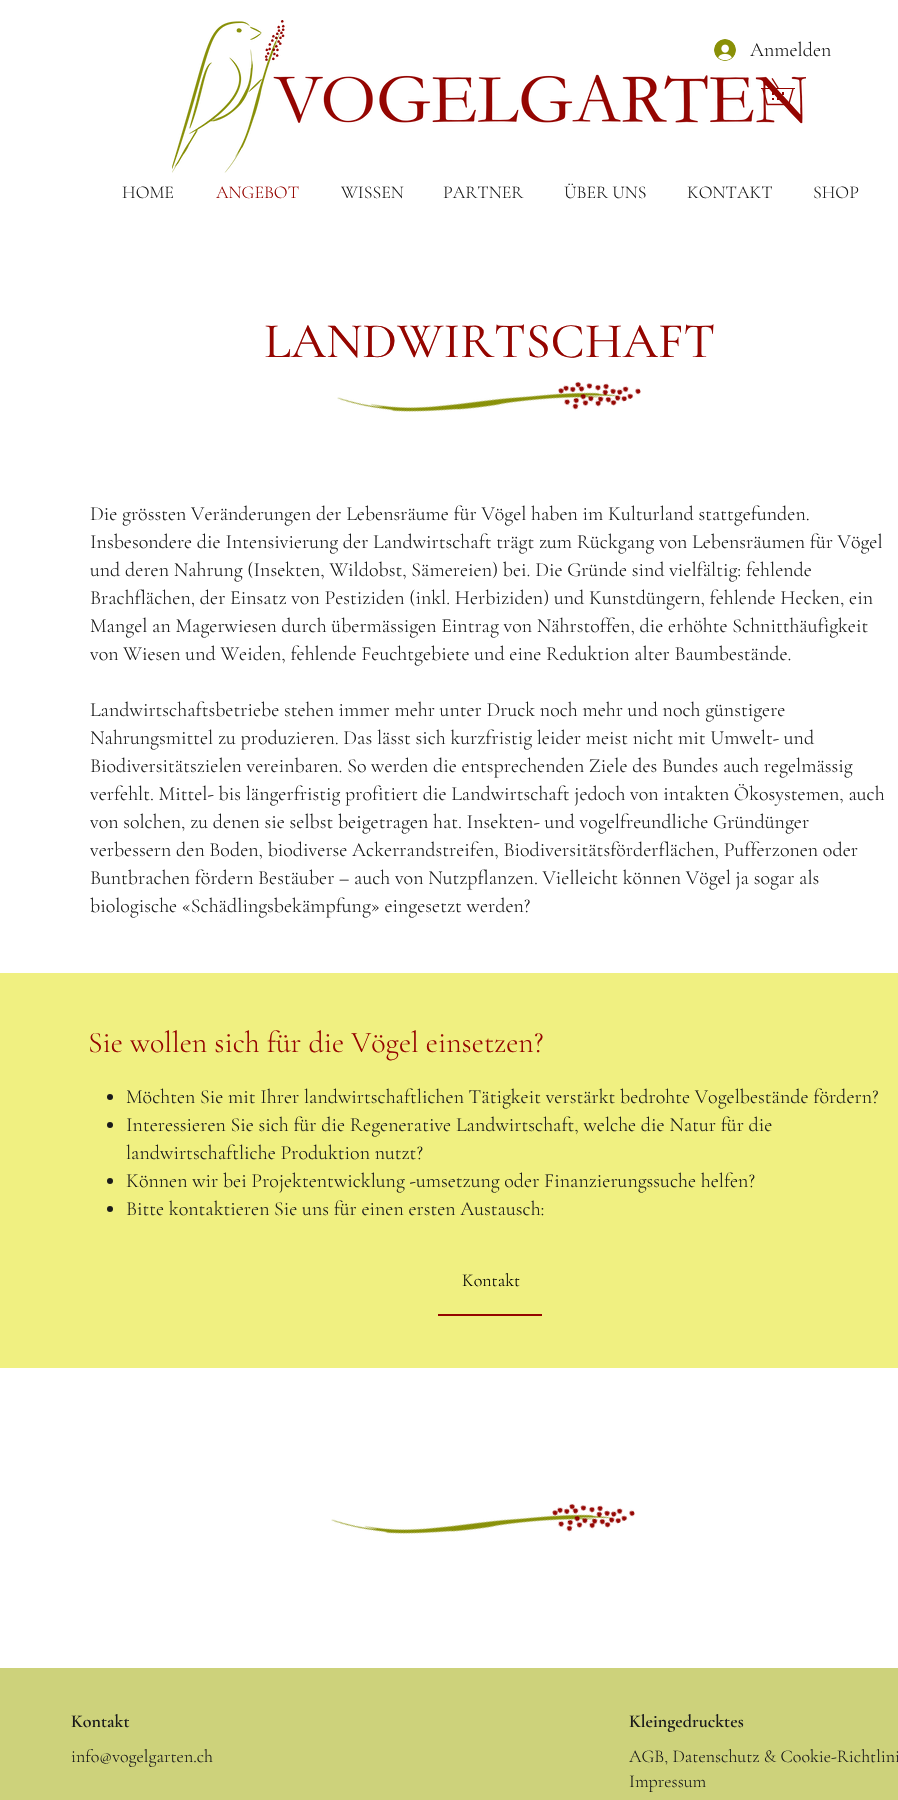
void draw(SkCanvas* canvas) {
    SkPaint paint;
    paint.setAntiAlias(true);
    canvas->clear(0xFFFFFFFF);
    canvas->drawImageRect(SkImages::DeferredFromEncodedData(SkData::MakeFromFileName("img3.png")), SkRect::MakeXYWH(172, 20, 634, 153), SkSamplingOptions());
    canvas->drawImageRect(SkImages::DeferredFromEncodedData(SkData::MakeFromFileName("img1.png")), SkRect::MakeXYWH(714, 39, 22, 22), SkSamplingOptions());
    SkFont font1(fontMgr->matchFamilyStyle("Cormorant Garamond", SkFontStyle(300, SkFontStyle::kNormal_Width, SkFontStyle::kUpright_Slant)), 20);
    font1.setSubpixel(true);
    paint.setColor(0xFF1A1A1A);
    canvas->drawString("Anmelden", 750, 56, font1, paint);
    canvas->drawImageRect(SkImages::DeferredFromEncodedData(SkData::MakeFromFileName("img2.png")), SkRect::MakeXYWH(761, 78, 34, 28), SkSamplingOptions());
    SkFont font2(fontMgr->matchFamilyStyle("Cormorant Garamond", SkFontStyle(300, SkFontStyle::kNormal_Width, SkFontStyle::kUpright_Slant)), 18);
    font2.setSubpixel(true);
    canvas->drawString("HOME", 122, 198, font2, paint);
    paint.setColor(0xFF950500);
    canvas->drawString("ANGEBOT", 216, 198, font2, paint);
    paint.setColor(0xFF1A1A1A);
    canvas->drawString("WISSEN", 341, 198, font2, paint);
    canvas->drawString("PARTNER", 443, 198, font2, paint);
    canvas->drawString("ÜBER UNS", 564, 198, font2, paint);
    canvas->drawString("KONTAKT", 687, 198, font2, paint);
    canvas->drawString("SHOP", 813, 198, font2, paint);
    SkFont font3(fontMgr->matchFamilyStyle("Cormorant Garamond", SkFontStyle(500, SkFontStyle::kNormal_Width, SkFontStyle::kUpright_Slant)), 50);
    font3.setSubpixel(true);
    paint.setColor(0xFF950500);
    canvas->drawString("LANDWIRTSCHAFT", 264, 357, font3, paint);
    canvas->drawImageRect(SkImages::DeferredFromEncodedData(SkData::MakeFromFileName("img4.png")), SkRect::MakeXYWH(337, 381, 304, 31), SkSamplingOptions());
    paint.setColor(0xFF1A1A1A);
    canvas->drawString("Die grössten Veränderungen der Lebensräume für Vögel haben im Kulturland stattgefunden.", 90, 520, font1, paint);
    canvas->drawString("Insbesondere die Intensivierung der Landwirtschaft trägt zum Rückgang von Lebensräumen für Vögel", 90, 548, font1, paint);
    canvas->drawString("und deren Nahrung (Insekten, Wildobst, Sämereien) bei. Die Gründe sind vielfältig: fehlende", 90, 576, font1, paint);
    canvas->drawString("Brachflächen, der Einsatz von Pestiziden (inkl. Herbiziden) und Kunstdüngern, fehlende Hecken, ein", 90, 604, font1, paint);
    canvas->drawString("Mangel an Magerwiesen durch übermässigen Eintrag von Nährstoffen, die erhöhte Schnitthäufigkeit", 90, 632, font1, paint);
    canvas->drawString("von Wiesen und Weiden, fehlende Feuchtgebiete und eine Reduktion alter Baumbestände.", 90, 660, font1, paint);
    canvas->drawString("Landwirtschaftsbetriebe stehen immer mehr unter Druck noch mehr und noch günstigere", 90, 716, font1, paint);
    canvas->drawString("Nahrungsmittel zu produzieren. Das lässt sich kurzfristig leider meist nicht mit Umwelt- und", 90, 744, font1, paint);
    canvas->drawString("Biodiversitätszielen vereinbaren. So werden die entsprechenden Ziele des Bundes auch regelmässig", 90, 772, font1, paint);
    canvas->drawString("verfehlt. Mittel- bis längerfristig profitiert die Landwirtschaft jedoch von intakten Ökosystemen, auch", 90, 800, font1, paint);
    canvas->drawString("von solchen, zu denen sie selbst beigetragen hat. Insekten- und vogelfreundliche Gründünger", 90, 828, font1, paint);
    canvas->drawString("verbessern den Boden, biodiverse Ackerrandstreifen, Biodiversitätsförderflächen, Pufferzonen oder", 90, 856, font1, paint);
    canvas->drawString("Buntbrachen fördern Bestäuber – auch von Nutzpflanzen. Vielleicht können Vögel ja sogar als", 90, 884, font1, paint);
    canvas->drawString("biologische «Schädlingsbekämpfung» eingesetzt werden?", 90, 912, font1, paint);
    paint.setColor(0xFFF0F081);
    canvas->drawRect(SkRect::MakeXYWH(0, 973, 898, 395), paint);
    SkFont font4(fontMgr->matchFamilyStyle("Cormorant Garamond", SkFontStyle(300, SkFontStyle::kNormal_Width, SkFontStyle::kUpright_Slant)), 30);
    font4.setSubpixel(true);
    paint.setColor(0xFF950500);
    canvas->drawString("Sie wollen sich für die Vögel einsetzen?", 88, 1052, font4, paint);
    paint.setColor(0xFF1A1A1A);
    canvas->drawCircle(110, 1097, 3, paint);
    canvas->drawString("Möchten Sie mit Ihrer landwirtschaftlichen Tätigkeit verstärkt bedrohte Vogelbestände fördern?", 126, 1103, font1, paint);
    canvas->drawCircle(110, 1125, 3, paint);
    canvas->drawString("Interessieren Sie sich für die Regenerative Landwirtschaft, welche die Natur für die", 126, 1131, font1, paint);
    canvas->drawString("landwirtschaftliche Produktion nutzt?", 126, 1159, font1, paint);
    canvas->drawCircle(110, 1181, 3, paint);
    canvas->drawString("Können wir bei Projektentwicklung -umsetzung oder Finanzierungssuche helfen?", 126, 1187, font1, paint);
    canvas->drawCircle(110, 1209, 3, paint);
    canvas->drawString("Bitte kontaktieren Sie uns für einen ersten Austausch:", 126, 1215, font1, paint);
    paint.setColor(0xFF950500);
    canvas->drawRect(SkRect::MakeXYWH(438, 1314, 104, 2), paint);
    paint.setColor(0xFF000000);
    canvas->drawString("Kontakt", 462, 1286, font2, paint);
    canvas->drawImageRect(SkImages::DeferredFromEncodedData(SkData::MakeFromFileName("img5.png")), SkRect::MakeXYWH(331, 1503, 304, 31), SkSamplingOptions());
    paint.setColor(0xFFCDD27B);
    canvas->drawRect(SkRect::MakeXYWH(0, 1668, 898, 132), paint);
    SkFont font5(fontMgr->matchFamilyStyle("Cormorant Garamond", SkFontStyle(600, SkFontStyle::kNormal_Width, SkFontStyle::kUpright_Slant)), 18);
    font5.setSubpixel(true);
    paint.setColor(0xFF1A1A1A);
    canvas->drawString("Kontakt", 71, 1727, font5, paint);
    canvas->drawString("Kleingedrucktes", 629, 1727, font5, paint);
    canvas->drawString("info@vogelgarten.ch", 71, 1762, font2, paint);
    canvas->drawString("AGB, Datenschutz & Cookie-Richtlini", 629, 1762, font2, paint);
    canvas->drawString("Impressum", 629, 1787, font2, paint);
}
